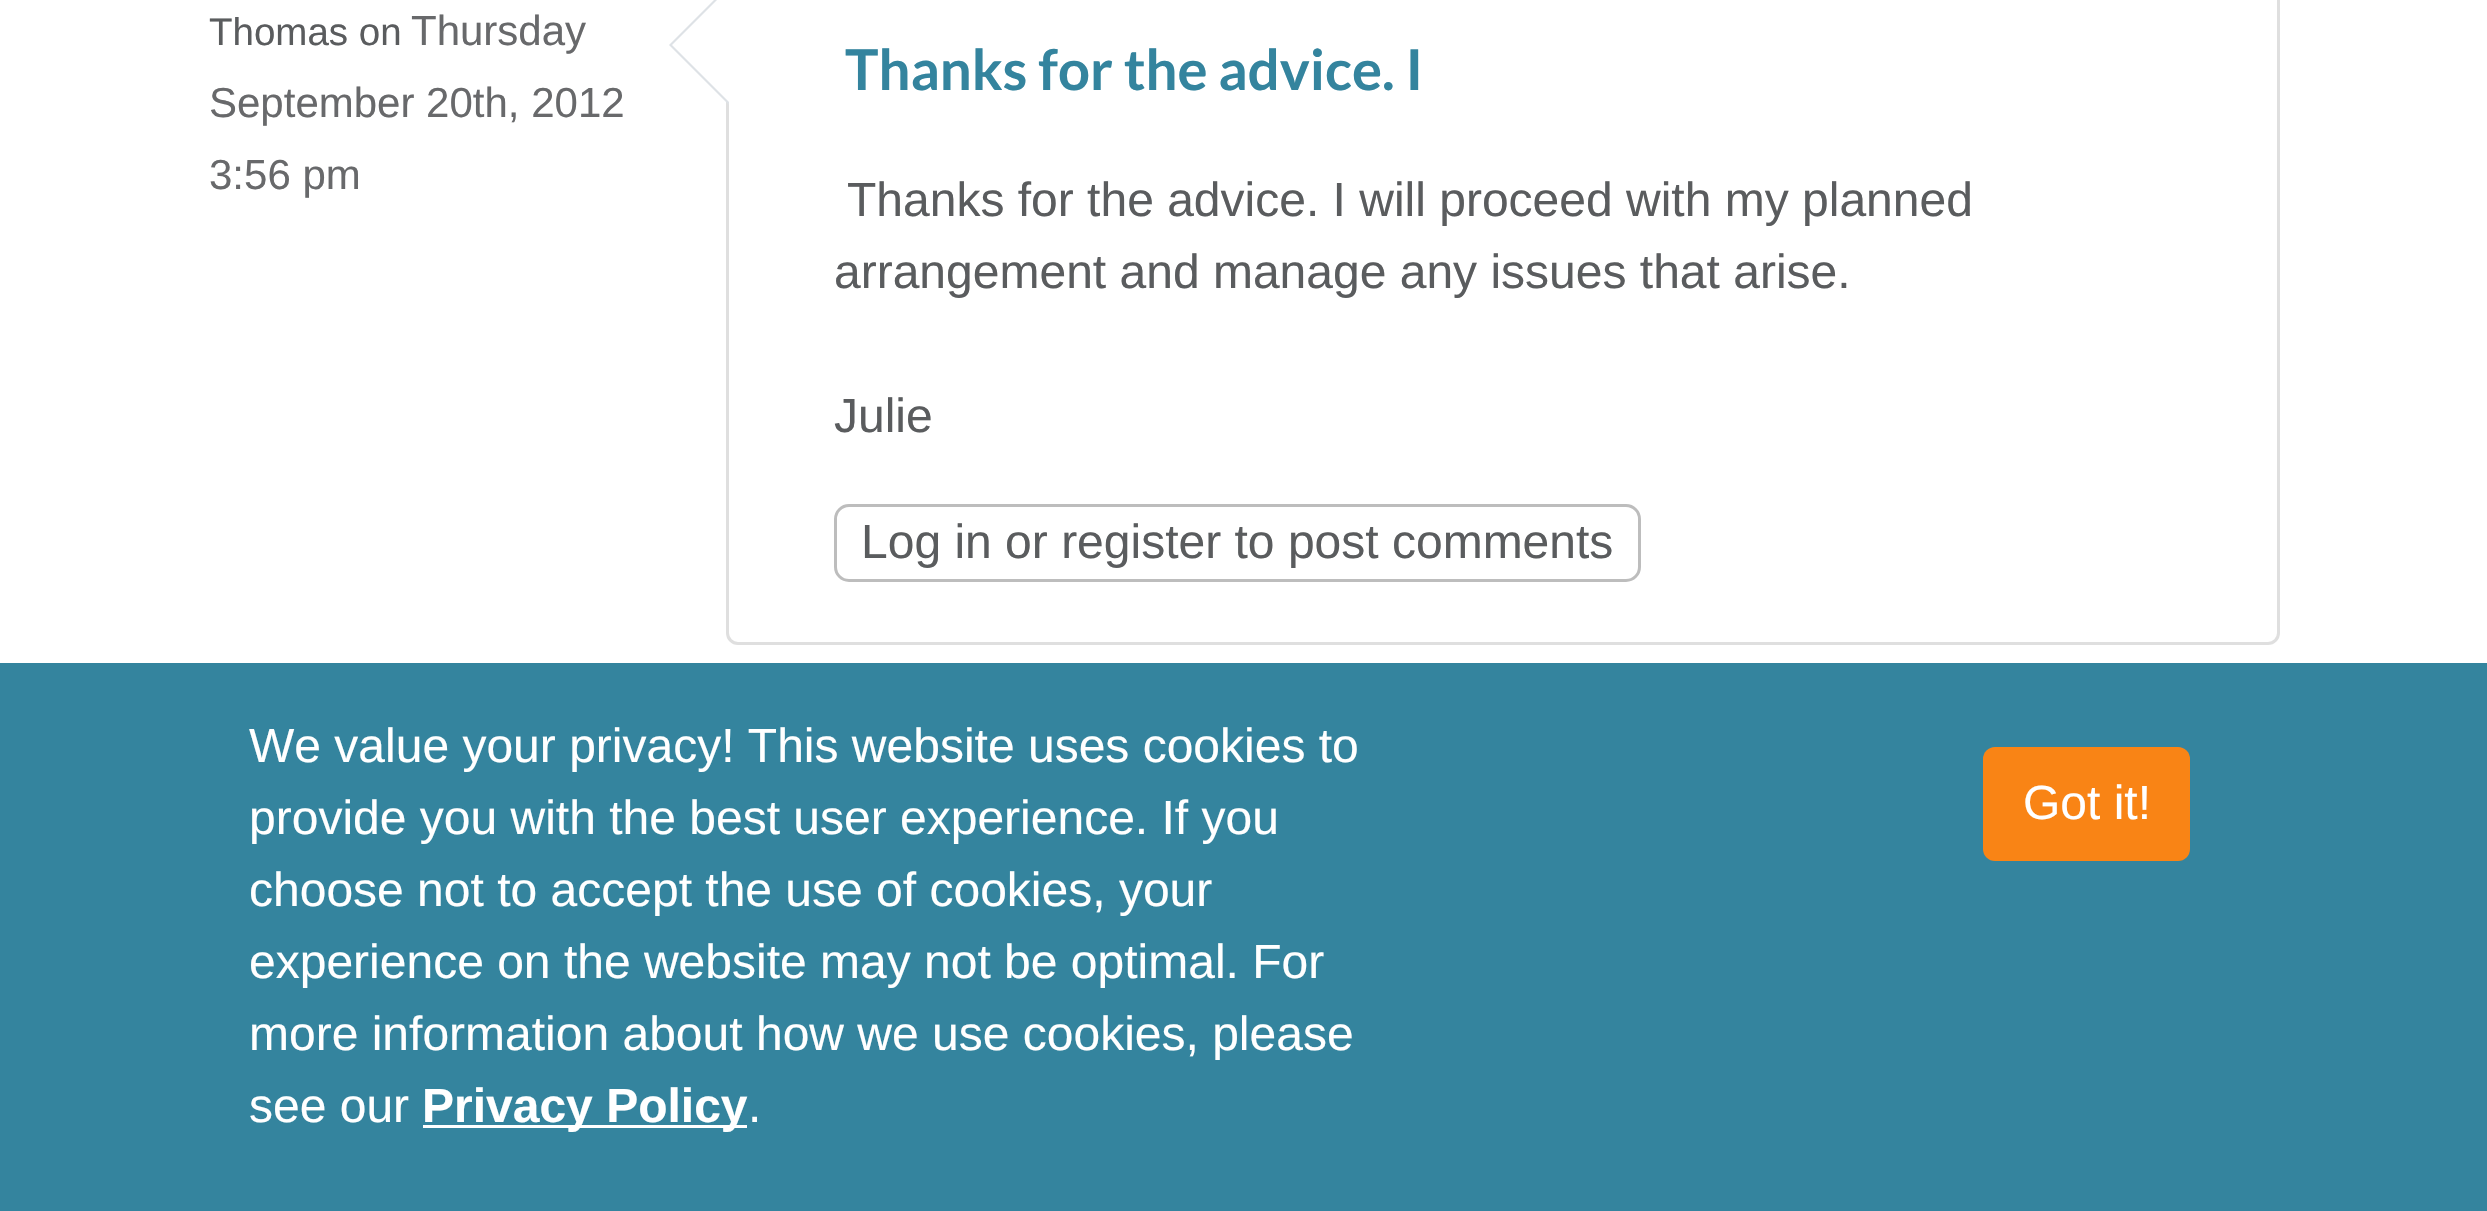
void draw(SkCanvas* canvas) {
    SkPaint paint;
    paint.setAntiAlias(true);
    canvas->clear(0xFFFFFFFF);
    SkFont font1(fontMgr->matchFamilyStyle("Liberation Sans", SkFontStyle::Normal()), 38.5f);
    font1.setSubpixel(true);
    paint.setColor(0xFF5A5C5E);
    canvas->drawString("Thomas on", 209, 45, font1, paint);
    SkFont font2(fontMgr->matchFamilyStyle("Liberation Sans", SkFontStyle::Normal()), 42);
    font2.setSubpixel(true);
    paint.setColor(0xFF68696B);
    canvas->drawString("Thursday", 411, 45, font2, paint);
    canvas->drawString("September 20th, 2012", 209, 117, font2, paint);
    canvas->drawString("3:56 pm", 209, 189, font2, paint);
    paint.setStyle(SkPaint::kStroke_Style);
    paint.setStrokeWidth(3);
    paint.setColor(0xFFDFDFDF);
    canvas->drawRoundRect(SkRect::MakeXYWH(727.5f, -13.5f, 1551, 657), 10.5f, 10.5f, paint);
    paint.setStyle(SkPaint::kFill_Style);
    paint.setColor(0xFFDEE2E6);
    canvas->drawPath(SkPathBuilder().moveTo(729, -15).lineTo(729, 105).lineTo(669, 45).close().detach(), paint);
    paint.setColor(0xFFFFFFFF);
    canvas->drawPath(SkPathBuilder().moveTo(732, -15).lineTo(732, 105).lineTo(672, 45).close().detach(), paint);
    SkFont font3(fontMgr->matchFamilyStyle("Lato", SkFontStyle::Bold()), 56.25f);
    font3.setSubpixel(true);
    paint.setColor(0xFF34849E);
    canvas->drawString("Thanks for the advice. I", 845, 90, font3, paint);
    SkFont font4(fontMgr->matchFamilyStyle("Liberation Sans", SkFontStyle::Normal()), 48);
    font4.setSubpixel(true);
    paint.setColor(0xFF5A5C5E);
    canvas->drawString("Thanks for the advice. I will proceed with my planned", 847, 216, font4, paint);
    canvas->drawString("arrangement and manage any issues that arise.", 834, 288, font4, paint);
    canvas->drawString("Julie", 834, 432, font4, paint);
    paint.setStyle(SkPaint::kStroke_Style);
    paint.setColor(0xFFBDBDBD);
    canvas->drawRoundRect(SkRect::MakeXYWH(835.5f, 505.5f, 804, 75), 13.5f, 13.5f, paint);
    paint.setStyle(SkPaint::kFill_Style);
    paint.setColor(0xFF5A5C5E);
    canvas->drawString("Log in or register to post comments", 861, 558, font4, paint);
    paint.setColor(0xFF34849E);
    canvas->drawRect(SkRect::MakeXYWH(0, 663, 2487, 548), paint);
    paint.setColor(0xFFFFFFFF);
    canvas->drawString("We value your privacy! This website uses cookies to", 249, 762, font4, paint);
    canvas->drawString("provide you with the best user experience. If you", 249, 834, font4, paint);
    canvas->drawString("choose not to accept the use of cookies, your", 249, 906, font4, paint);
    canvas->drawString("experience on the website may not be optimal. For", 249, 978, font4, paint);
    canvas->drawString("more information about how we use cookies, please", 249, 1050, font4, paint);
    canvas->drawString("see our", 249, 1122, font4, paint);
    canvas->drawRect(SkRect::MakeXYWH(423, 1125, 324, 3), paint);
    SkFont font5(fontMgr->matchFamilyStyle("Liberation Sans", SkFontStyle::Bold()), 48);
    font5.setSubpixel(true);
    canvas->drawString("Privacy Policy", 422, 1122, font5, paint);
    canvas->drawString(".", 748, 1122, font4, paint);
    paint.setColor(0xFFF98415);
    canvas->drawRoundRect(SkRect::MakeXYWH(1983, 747, 207, 114), 12, 12, paint);
    paint.setColor(0xFFFFFFFF);
    canvas->drawString("Got it!", 2023, 819, font4, paint);
}
